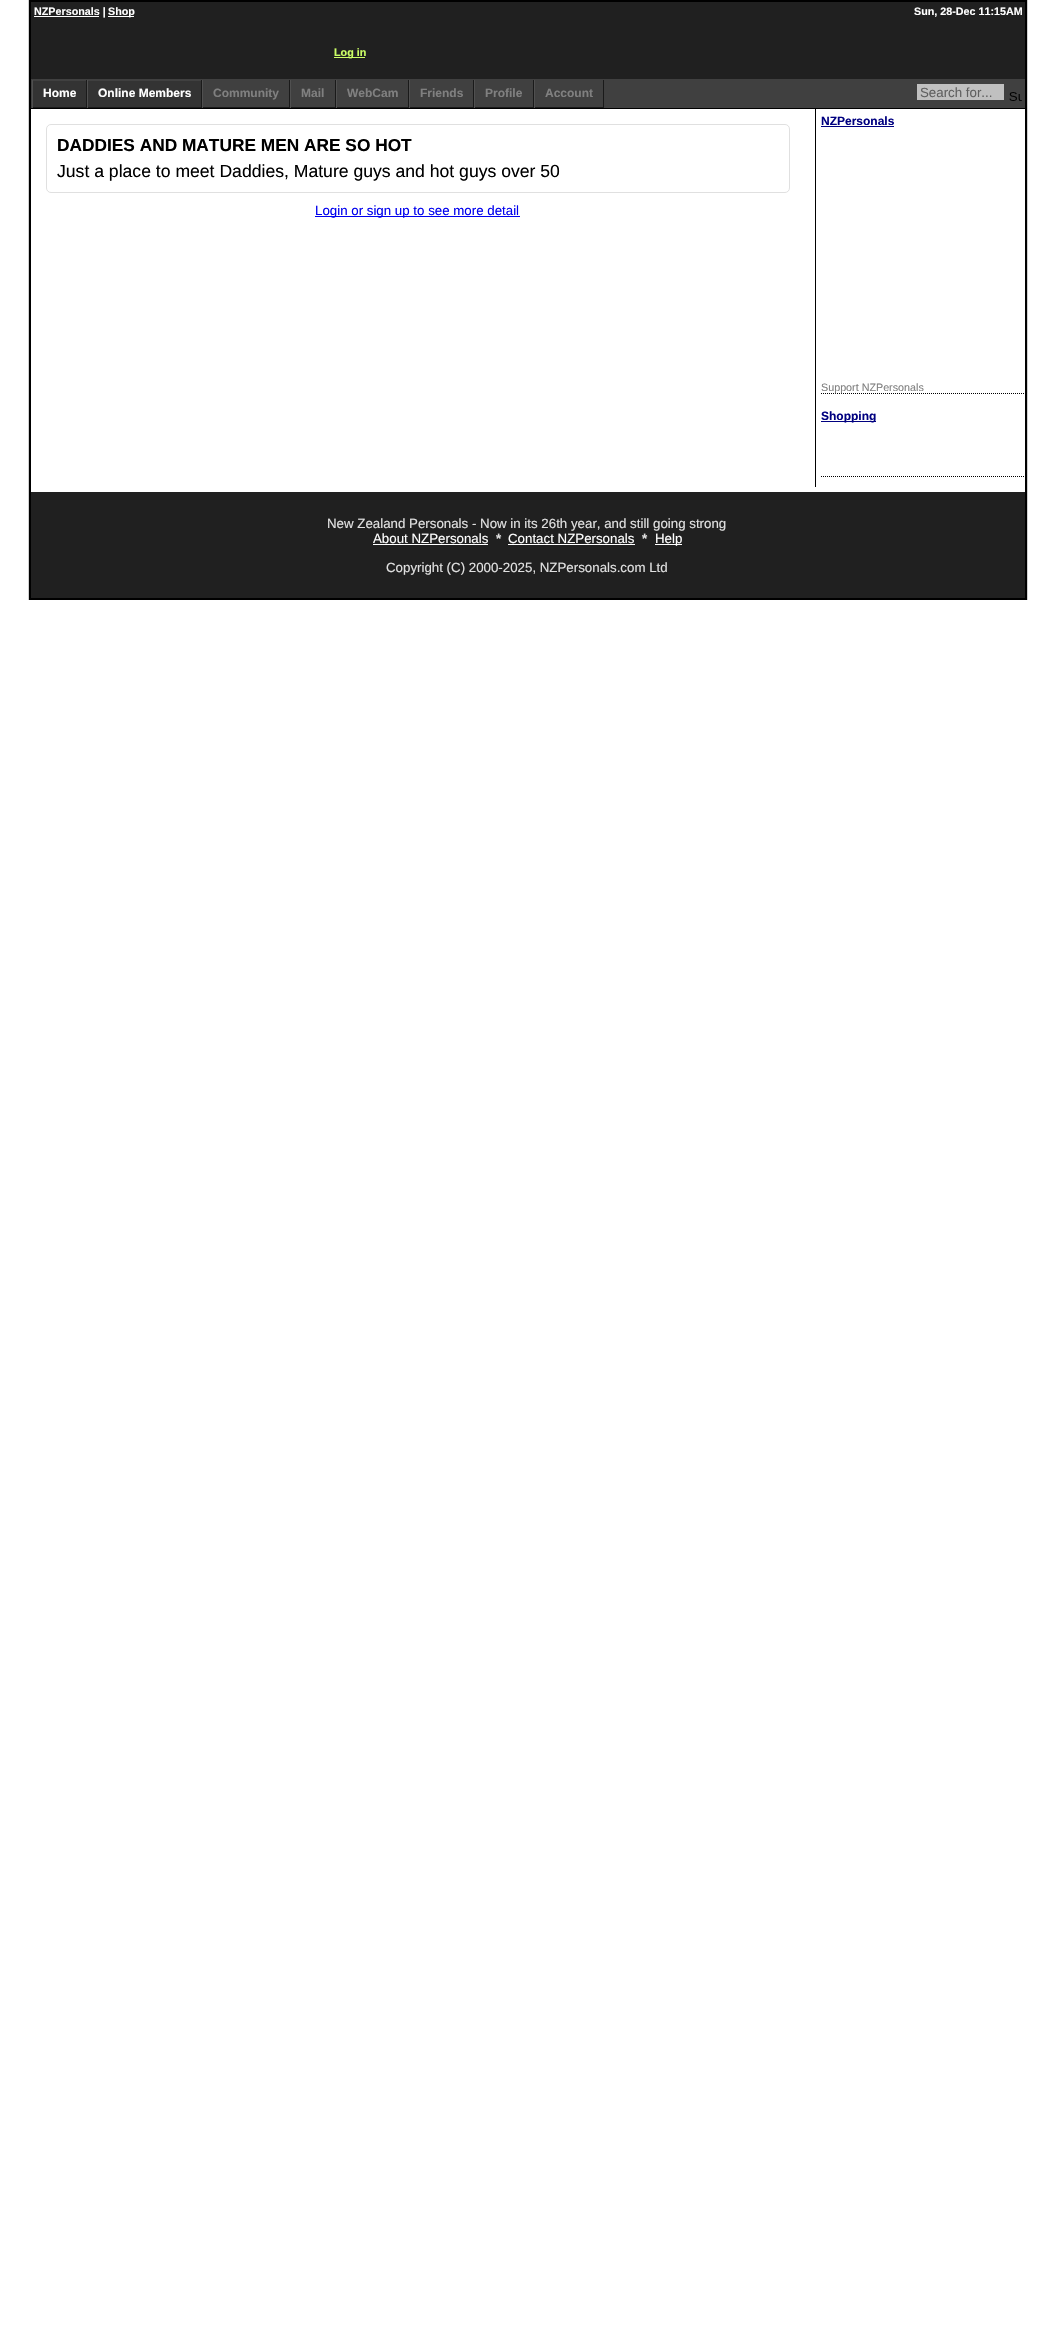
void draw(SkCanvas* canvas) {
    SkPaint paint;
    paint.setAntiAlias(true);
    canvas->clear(0xFFFFFFFF);
    paint.setColor(0xFF000000);
    canvas->drawRect(SkRect::MakeXYWH(29, 0, 998, 600), paint);
    paint.setColor(0xFFD0D0D0);
    canvas->drawRect(SkRect::MakeXYWH(1027, 0, 1, 600), paint);
    canvas->drawRect(SkRect::MakeXYWH(28, 0, 1, 600), paint);
    paint.setColor(0xFF202020);
    canvas->drawRect(SkRect::MakeXYWH(31, 2, 994, 77), paint);
    paint.setColor(0xFFFFFFFF);
    canvas->drawRect(SkRect::MakeXYWH(34, 16, 65, 1), paint);
    SkFont font1(fontMgr->matchFamilyStyle("Liberation Sans", SkFontStyle::Bold()), 10.75f);
    font1.setSubpixel(true);
    canvas->drawString("NZPersonals |", 34, 15, font1, paint);
    canvas->drawRect(SkRect::MakeXYWH(108, 16, 26, 1), paint);
    canvas->drawString("Shop", 108, 15, font1, paint);
    canvas->drawString("Sun, 28-Dec 11:15AM", 914, 15, font1, paint);
    paint.setColor(0xFFCCFF66);
    canvas->drawRect(SkRect::MakeXYWH(334, 57, 31, 1), paint);
    canvas->drawString("Log in", 334, 56, font1, paint);
    paint.setColor(0xFF404040);
    canvas->drawRect(SkRect::MakeXYWH(31, 79, 994, 29), paint);
    paint.setColor(0xFF333333);
    canvas->drawRect(SkRect::MakeXYWH(33, 81, 53, 26), paint);
    paint.setColor(0xFF1A1A1A);
    canvas->drawRect(SkRect::MakeXYWH(86, 80, 1, 28), paint);
    canvas->drawRect(SkRect::MakeXYWH(32, 107, 55, 1), paint);
    paint.setColor(0xFF505050);
    canvas->drawRect(SkRect::MakeXYWH(32, 80, 1, 28), paint);
    SkFont font2(fontMgr->matchFamilyStyle("Liberation Sans", SkFontStyle::Bold()), 12);
    font2.setSubpixel(true);
    paint.setColor(0xFFFFFFFF);
    canvas->drawString("Home", 43, 97, font2, paint);
    paint.setColor(0xFF333333);
    canvas->drawRect(SkRect::MakeXYWH(88, 81, 113, 26), paint);
    paint.setColor(0xFF1A1A1A);
    canvas->drawRect(SkRect::MakeXYWH(201, 80, 1, 28), paint);
    canvas->drawRect(SkRect::MakeXYWH(87, 107, 115, 1), paint);
    paint.setColor(0xFF505050);
    canvas->drawRect(SkRect::MakeXYWH(87, 80, 1, 28), paint);
    paint.setColor(0xFFFFFFFF);
    canvas->drawString("Online Members", 98, 97, font2, paint);
    paint.setColor(0xFF1A1A1A);
    canvas->drawRect(SkRect::MakeXYWH(289, 80, 1, 28), paint);
    canvas->drawRect(SkRect::MakeXYWH(202, 107, 88, 1), paint);
    paint.setColor(0xFF505050);
    canvas->drawRect(SkRect::MakeXYWH(202, 80, 1, 28), paint);
    paint.setColor(0xFF808080);
    canvas->drawString("Community", 213, 97, font2, paint);
    paint.setColor(0xFF1A1A1A);
    canvas->drawRect(SkRect::MakeXYWH(335, 80, 1, 28), paint);
    canvas->drawRect(SkRect::MakeXYWH(290, 107, 46, 1), paint);
    paint.setColor(0xFF505050);
    canvas->drawRect(SkRect::MakeXYWH(290, 80, 1, 28), paint);
    paint.setColor(0xFF808080);
    canvas->drawString("Mail", 301, 97, font2, paint);
    paint.setColor(0xFF1A1A1A);
    canvas->drawRect(SkRect::MakeXYWH(408, 80, 1, 28), paint);
    canvas->drawRect(SkRect::MakeXYWH(336, 107, 73, 1), paint);
    paint.setColor(0xFF505050);
    canvas->drawRect(SkRect::MakeXYWH(336, 80, 1, 28), paint);
    paint.setColor(0xFF808080);
    canvas->drawString("WebCam", 347, 97, font2, paint);
    paint.setColor(0xFF1A1A1A);
    canvas->drawRect(SkRect::MakeXYWH(473, 80, 1, 28), paint);
    canvas->drawRect(SkRect::MakeXYWH(409, 107, 65, 1), paint);
    paint.setColor(0xFF505050);
    canvas->drawRect(SkRect::MakeXYWH(409, 80, 1, 28), paint);
    paint.setColor(0xFF808080);
    canvas->drawString("Friends", 420, 97, font2, paint);
    paint.setColor(0xFF1A1A1A);
    canvas->drawRect(SkRect::MakeXYWH(533, 80, 1, 28), paint);
    canvas->drawRect(SkRect::MakeXYWH(474, 107, 60, 1), paint);
    paint.setColor(0xFF505050);
    canvas->drawRect(SkRect::MakeXYWH(474, 80, 1, 28), paint);
    paint.setColor(0xFF808080);
    canvas->drawString("Profile", 485, 97, font2, paint);
    paint.setColor(0xFF1A1A1A);
    canvas->drawRect(SkRect::MakeXYWH(603, 80, 1, 28), paint);
    canvas->drawRect(SkRect::MakeXYWH(534, 107, 70, 1), paint);
    paint.setColor(0xFF505050);
    canvas->drawRect(SkRect::MakeXYWH(534, 80, 1, 28), paint);
    paint.setColor(0xFF808080);
    canvas->drawString("Account", 545, 97, font2, paint);
    paint.setColor(0xFFC0C0C0);
    canvas->drawRect(SkRect::MakeXYWH(917, 84, 87, 16), paint);
    SkFont font3(fontMgr->matchFamilyStyle("Liberation Sans", SkFontStyle::Normal()), 13.3f);
    font3.setSubpixel(true);
    paint.setColor(0xFF606060);
    canvas->drawString("Search for...", 920, 97, font3, paint);
    canvas->drawImageRect(SkImages::DeferredFromEncodedData(SkData::MakeFromFileName("img1.png")), SkRect::MakeXYWH(1009, 92, 13, 9), SkSamplingOptions());
    paint.setColor(0xFFFFFFFF);
    canvas->drawRect(SkRect::MakeXYWH(31, 109, 994, 383), paint);
    paint.setStyle(SkPaint::kStroke_Style);
    paint.setStrokeWidth(1);
    paint.setColor(0xFFE0E0E0);
    canvas->drawRoundRect(SkRect::MakeXYWH(46.5f, 124.5f, 743, 68), 4.5f, 4.5f, paint);
    SkFont font4(fontMgr->matchFamilyStyle("Liberation Sans", SkFontStyle::Bold()), 17.3f);
    font4.setSubpixel(true);
    paint.setStyle(SkPaint::kFill_Style);
    paint.setColor(0xFF000000);
    canvas->drawString("DADDIES AND MATURE MEN ARE SO HOT", 57, 151, font4, paint);
    SkFont font5(fontMgr->matchFamilyStyle("Liberation Sans", SkFontStyle::Normal()), 17.6f);
    font5.setSubpixel(true);
    canvas->drawString("Just a place to meet Daddies, Mature guys and hot guys over 50", 57, 177, font5, paint);
    paint.setColor(0xFF0000EE);
    canvas->drawRect(SkRect::MakeXYWH(315, 216, 205, 1), paint);
    canvas->drawString("Login or sign up to see more detail", 315, 215, font3, paint);
    paint.setColor(0xFF000000);
    canvas->drawRect(SkRect::MakeXYWH(815, 109, 1, 378), paint);
    paint.setStyle(SkPaint::kStroke_Style);
    paint.setPathEffect(SkDashPathEffect::Make({{1, 1}}, 0));
    canvas->drawPath(SkPathBuilder().moveTo(821, 393.5f).lineTo(1025, 393.5f).detach(), paint);
    paint.setPathEffect(nullptr);
    paint.setStyle(SkPaint::kFill_Style);
    paint.setColor(0xFF000080);
    canvas->drawString("NZPersonals", 821, 125, font2, paint);
    canvas->drawRect(SkRect::MakeXYWH(821, 126, 73, 1), paint);
    SkFont font6(fontMgr->matchFamilyStyle("Liberation Sans", SkFontStyle::Normal()), 10.75f);
    font6.setSubpixel(true);
    paint.setColor(0xFF808080);
    canvas->drawString("Support NZPersonals", 821, 391, font6, paint);
    paint.setStyle(SkPaint::kStroke_Style);
    paint.setColor(0xFF000000);
    paint.setPathEffect(SkDashPathEffect::Make({{1, 1}}, 0));
    canvas->drawPath(SkPathBuilder().moveTo(821, 476.5f).lineTo(1025, 476.5f).detach(), paint);
    paint.setPathEffect(nullptr);
    paint.setStyle(SkPaint::kFill_Style);
    paint.setColor(0xFF000080);
    canvas->drawRect(SkRect::MakeXYWH(821, 421, 55, 1), paint);
    canvas->drawString("Shopping", 821, 420, font2, paint);
    paint.setColor(0xFF202020);
    canvas->drawRect(SkRect::MakeXYWH(31, 492, 994, 106), paint);
    paint.setColor(0xFFE0E0E0);
    canvas->drawString("New Zealand Personals - Now in its 26th year, and still going strong", 327, 528, font3, paint);
    paint.setColor(0xFFFFFFFF);
    canvas->drawString("About NZPersonals", 373, 543, font3, paint);
    canvas->drawRect(SkRect::MakeXYWH(373, 544, 115, 1), paint);
    SkFont font7(fontMgr->matchFamilyStyle("Liberation Sans", SkFontStyle::Bold()), 13.3f);
    font7.setSubpixel(true);
    paint.setColor(0xFFE0E0E0);
    canvas->drawString("*", 496, 543, font7, paint);
    paint.setColor(0xFFFFFFFF);
    canvas->drawString("Contact NZPersonals", 508, 543, font3, paint);
    canvas->drawRect(SkRect::MakeXYWH(508, 544, 127, 1), paint);
    paint.setColor(0xFFE0E0E0);
    canvas->drawString("*", 642, 543, font7, paint);
    paint.setColor(0xFFFFFFFF);
    canvas->drawRect(SkRect::MakeXYWH(655, 544, 27, 1), paint);
    canvas->drawString("Help", 655, 543, font3, paint);
    paint.setColor(0xFFE0E0E0);
    canvas->drawString("Copyright (C) 2000-2025, NZPersonals.com Ltd", 386, 572, font3, paint);
}
